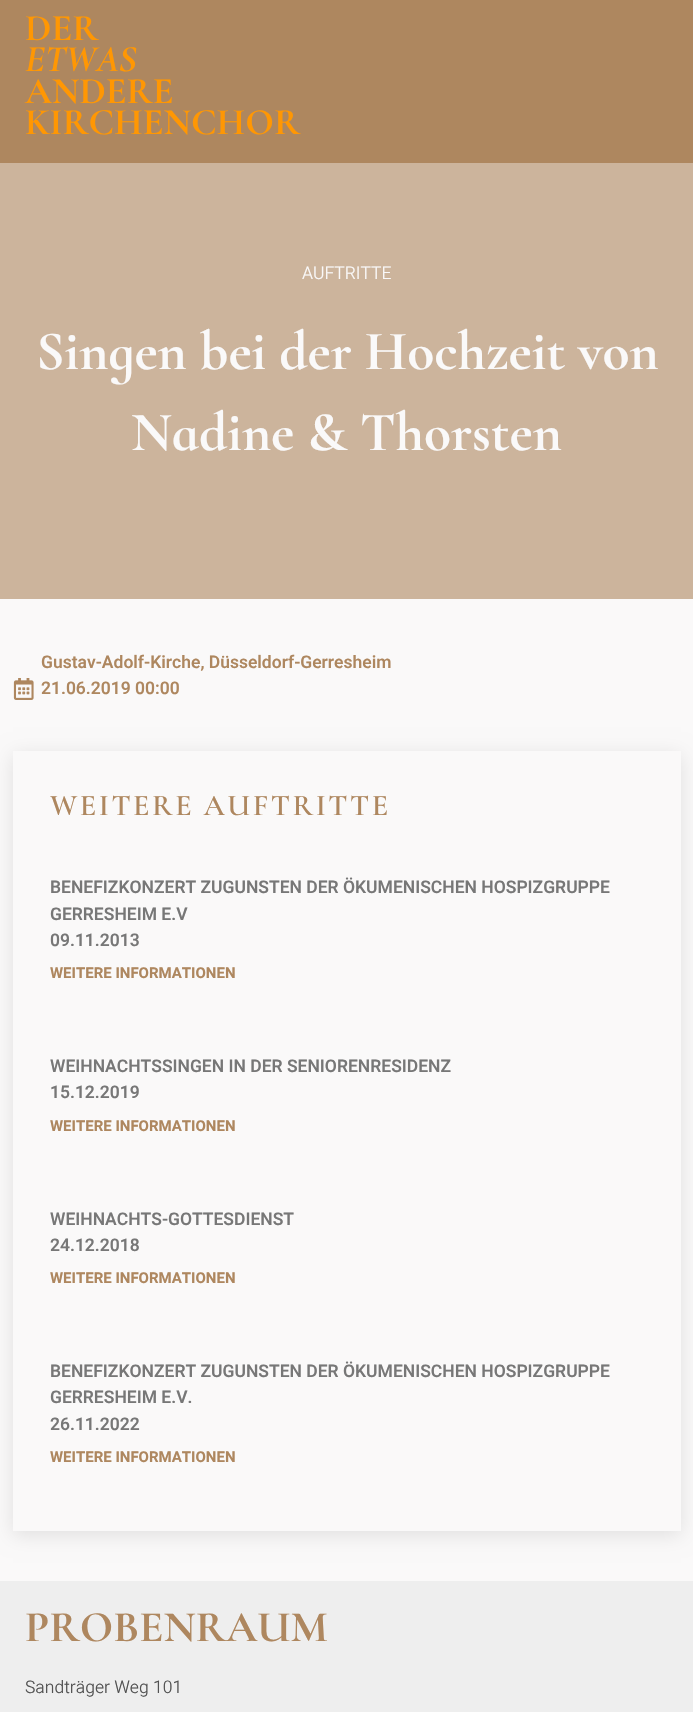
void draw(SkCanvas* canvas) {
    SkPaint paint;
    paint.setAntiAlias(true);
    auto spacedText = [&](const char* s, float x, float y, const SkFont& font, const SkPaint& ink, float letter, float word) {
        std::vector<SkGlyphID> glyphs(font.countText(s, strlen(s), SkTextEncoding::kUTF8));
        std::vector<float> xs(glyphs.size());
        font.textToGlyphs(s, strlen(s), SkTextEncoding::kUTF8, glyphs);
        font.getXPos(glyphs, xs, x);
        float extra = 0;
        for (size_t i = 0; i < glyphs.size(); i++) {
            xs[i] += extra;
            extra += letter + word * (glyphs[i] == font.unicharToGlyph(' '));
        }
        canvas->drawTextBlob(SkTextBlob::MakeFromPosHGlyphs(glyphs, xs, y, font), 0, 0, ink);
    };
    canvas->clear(0xFFFAF9F9);
    paint.setColor(0xFFAE875F);
    canvas->drawRect(SkRect::MakeXYWH(0, 0, 693, 163), paint);
    SkFont font1(fontMgr->matchFamilyStyle("Cormorant Infant", SkFontStyle::Bold()), 37.5f);
    font1.setSubpixel(true);
    paint.setColor(0xFFFF9703);
    canvas->drawString("DER", 25, 40, font1, paint);
    SkFont font2(fontMgr->matchFamilyStyle("Cormorant Infant", SkFontStyle::BoldItalic()), 37.5f);
    font2.setSubpixel(true);
    canvas->drawString("ETWAS", 25, 71, font2, paint);
    canvas->drawString("ANDERE", 25, 103, font1, paint);
    canvas->drawString("KIRCHENCHOR", 25, 134, font1, paint);
    paint.setColor(0xFFCCB49C);
    canvas->drawRect(SkRect::MakeXYWH(0, 163, 693, 436), paint);
    SkFont font3(fontMgr->matchFamilyStyle("Heebo", SkFontStyle(300, SkFontStyle::kNormal_Width, SkFontStyle::kUpright_Slant)), 17.5f);
    font3.setSubpixel(true);
    paint.setColor(0xFFFAF9F9);
    canvas->drawString("AUFTRITTE", 302, 279, font3, paint);
    SkFont font4(fontMgr->matchFamilyStyle("Cormorant Infant", SkFontStyle::Bold()), 55.5f);
    font4.setSubpixel(true);
    canvas->drawString("Singen bei der Hochzeit von", 36, 369, font4, paint);
    canvas->drawString("Nadine & Thorsten", 131, 450, font4, paint);
    SkFont font5(fontMgr->matchFamilyStyle("Heebo", SkFontStyle(600, SkFontStyle::kNormal_Width, SkFontStyle::kUpright_Slant)), 17.5f);
    font5.setSubpixel(true);
    paint.setColor(0xFFAE875F);
    canvas->drawString("Gustav-Adolf-Kirche, Düsseldorf-Gerresheim", 41, 668, font5, paint);
    canvas->drawImageRect(SkImages::DeferredFromEncodedData(SkData::MakeFromFileName("img1.png")), SkRect::MakeXYWH(13, 678, 21, 22), SkSamplingOptions());
    canvas->drawString("21.06.2019 00:00", 41, 694, font5, paint);
    paint.setColor(0x1A000000);
    paint.setMaskFilter(SkMaskFilter::MakeBlur(kNormal_SkBlurStyle, 9.5f));
    canvas->drawRect(SkRect::MakeXYWH(13, 755, 668, 780), paint);
    paint.setMaskFilter(nullptr);
    paint.setColor(0xFFFAF9F9);
    canvas->drawRect(SkRect::MakeXYWH(13, 751, 668, 780), paint);
    SkFont font6(fontMgr->matchFamilyStyle("Cormorant Infant", SkFontStyle(600, SkFontStyle::kNormal_Width, SkFontStyle::kUpright_Slant)), 30);
    font6.setSubpixel(true);
    paint.setColor(0xFFAE875F);
    spacedText("WEITERE AUFTRITTE", 50, 815, font6, paint, 2.5f, 0);
    paint.setColor(0xFF777777);
    canvas->drawString("BENEFIZKONZERT ZUGUNSTEN DER ÖKUMENISCHEN HOSPIZGRUPPE", 50, 893, font5, paint);
    canvas->drawString("GERRESHEIM E.V", 50, 920, font5, paint);
    canvas->drawString("09.11.2013", 50, 946, font5, paint);
    SkFont font7(fontMgr->matchFamilyStyle("Heebo", SkFontStyle::Bold()), 15);
    font7.setSubpixel(true);
    paint.setColor(0xFFAE875F);
    canvas->drawString("WEITERE INFORMATIONEN", 50, 978, font7, paint);
    paint.setColor(0xFF777777);
    canvas->drawString("WEIHNACHTSSINGEN IN DER SENIORENRESIDENZ", 50, 1072, font5, paint);
    canvas->drawString("15.12.2019", 50, 1098, font5, paint);
    paint.setColor(0xFFAE875F);
    canvas->drawString("WEITERE INFORMATIONEN", 50, 1131, font7, paint);
    paint.setColor(0xFF777777);
    canvas->drawString("WEIHNACHTS-GOTTESDIENST", 50, 1225, font5, paint);
    canvas->drawString("24.12.2018", 50, 1251, font5, paint);
    paint.setColor(0xFFAE875F);
    canvas->drawString("WEITERE INFORMATIONEN", 50, 1283, font7, paint);
    paint.setColor(0xFF777777);
    canvas->drawString("BENEFIZKONZERT ZUGUNSTEN DER ÖKUMENISCHEN HOSPIZGRUPPE", 50, 1377, font5, paint);
    canvas->drawString("GERRESHEIM E.V.", 50, 1403, font5, paint);
    canvas->drawString("26.11.2022", 50, 1430, font5, paint);
    paint.setColor(0xFFAE875F);
    canvas->drawString("WEITERE INFORMATIONEN", 50, 1462, font7, paint);
    paint.setColor(0xFFEEEEEE);
    canvas->drawRect(SkRect::MakeXYWH(0, 1581, 693, 131), paint);
    SkFont font8(fontMgr->matchFamilyStyle("Cormorant Infant", SkFontStyle::Bold()), 43.75f);
    font8.setSubpixel(true);
    paint.setColor(0xFFAE875F);
    canvas->drawString("PROBENRAUM", 25, 1641, font8, paint);
    paint.setColor(0xFF525252);
    canvas->drawString("Sandträger Weg 101", 25, 1693, font3, paint);
}
